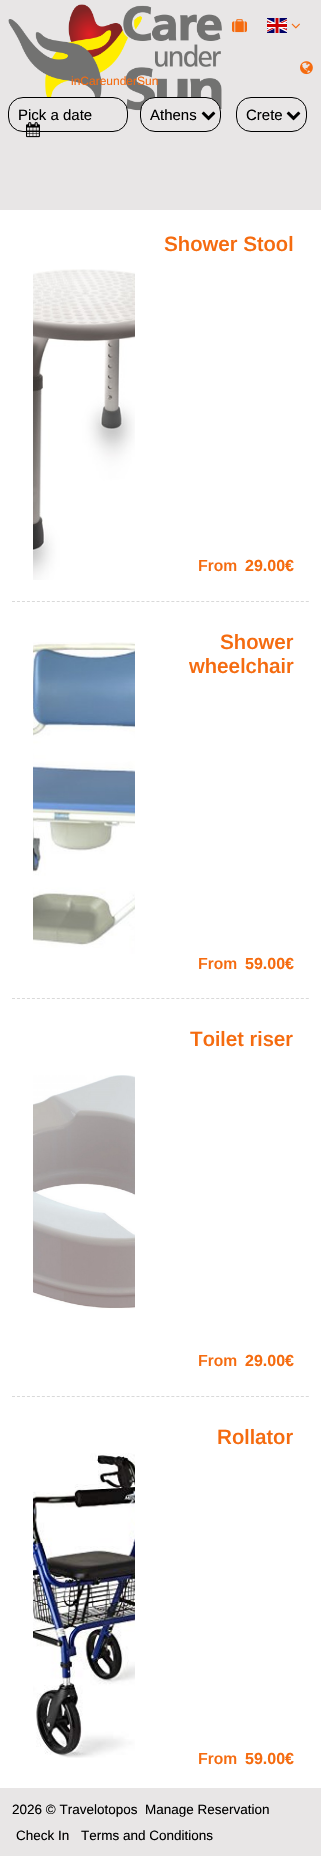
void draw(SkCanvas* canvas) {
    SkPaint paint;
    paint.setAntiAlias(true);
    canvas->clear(0xFFFFFFFF);
    paint.setColor(0xFFE8E6E6);
    canvas->drawRect(SkRect::MakeXYWH(0, 0, 321, 210), paint);
    canvas->drawImageRect(SkImages::DeferredFromEncodedData(SkData::MakeFromFileName("img1.png")), SkRect::MakeXYWH(232, 19, 15, 14), SkSamplingOptions());
    canvas->drawImageRect(SkImages::DeferredFromEncodedData(SkData::MakeFromFileName("img2.png")), SkRect::MakeXYWH(267, 18, 20, 15), SkSamplingOptions());
    canvas->drawImageRect(SkImages::DeferredFromEncodedData(SkData::MakeFromFileName("img3.png")), SkRect::MakeXYWH(291, 23, 9, 6), SkSamplingOptions());
    canvas->drawImageRect(SkImages::DeferredFromEncodedData(SkData::MakeFromFileName("img4.png")), SkRect::MakeXYWH(300, 61, 13, 14), SkSamplingOptions());
    canvas->drawImageRect(SkImages::DeferredFromEncodedData(SkData::MakeFromFileName("img5.png")), SkRect::MakeXYWH(8, 4, 214, 107), SkSamplingOptions());
    SkFont font1(fontMgr->matchFamilyStyle("Arimo", SkFontStyle::Normal()), 12);
    font1.setSubpixel(true);
    paint.setColor(0xFFF56B0F);
    canvas->drawString("inCareunderSun", 71, 85, font1, paint);
    paint.setColor(0xFFE8E6E6);
    canvas->drawRoundRect(SkRect::MakeXYWH(8.5f, 97.5f, 119, 34), 14.5f, 14.5f, paint);
    paint.setStyle(SkPaint::kStroke_Style);
    paint.setStrokeWidth(1);
    paint.setColor(0xFF000000);
    canvas->drawRoundRect(SkRect::MakeXYWH(8.5f, 97.5f, 119, 34), 14.5f, 14.5f, paint);
    SkFont font2(fontMgr->matchFamilyStyle("Arimo", SkFontStyle::Normal()), 15);
    font2.setSubpixel(true);
    paint.setStyle(SkPaint::kFill_Style);
    canvas->drawString("Pick a date", 18, 120, font2, paint);
    canvas->drawImageRect(SkImages::DeferredFromEncodedData(SkData::MakeFromFileName("img6.png")), SkRect::MakeXYWH(26, 122, 14, 16), SkSamplingOptions());
    paint.setColor(0xFFE8E6E6);
    canvas->drawRoundRect(SkRect::MakeXYWH(140.5f, 97.5f, 80, 34), 14.5f, 14.5f, paint);
    paint.setStyle(SkPaint::kStroke_Style);
    paint.setColor(0xFF000000);
    canvas->drawRoundRect(SkRect::MakeXYWH(140.5f, 97.5f, 80, 34), 14.5f, 14.5f, paint);
    paint.setStyle(SkPaint::kFill_Style);
    canvas->drawString("Athens", 150, 120, font2, paint);
    canvas->drawImageRect(SkImages::DeferredFromEncodedData(SkData::MakeFromFileName("img7.png")), SkRect::MakeXYWH(201, 111, 15, 10), SkSamplingOptions());
    paint.setStyle(SkPaint::kStroke_Style);
    canvas->drawRoundRect(SkRect::MakeXYWH(236.5f, 97.5f, 70, 34), 14.5f, 14.5f, paint);
    paint.setStyle(SkPaint::kFill_Style);
    canvas->drawString("Crete", 246, 120, font2, paint);
    canvas->drawImageRect(SkImages::DeferredFromEncodedData(SkData::MakeFromFileName("img7.png")), SkRect::MakeXYWH(286, 111, 15, 10), SkSamplingOptions());
    paint.setStyle(SkPaint::kStroke_Style);
    paint.setColor(0xFFD9D9D9);
    paint.setPathEffect(SkDashPathEffect::Make({{3, 1.98f}}, 0));
    canvas->drawPath(SkPathBuilder().moveTo(12, 601.5f).lineTo(309, 601.5f).detach(), paint);
    paint.setPathEffect(nullptr);
    canvas->drawImageRect(SkImages::DeferredFromEncodedData(SkData::MakeFromFileName("img8.png")), SkRect::MakeXYWH(33, 269, 102, 311), SkSamplingOptions());
    SkFont font3(fontMgr->matchFamilyStyle("Arimo", SkFontStyle(600, SkFontStyle::kNormal_Width, SkFontStyle::kUpright_Slant)), 20.75f);
    font3.setSubpixel(true);
    paint.setStyle(SkPaint::kFill_Style);
    paint.setColor(0xFFF56B0F);
    canvas->drawString("Shower Stool", 164, 251, font3, paint);
    SkFont font4(fontMgr->matchFamilyStyle("Arimo", SkFontStyle(600, SkFontStyle::kNormal_Width, SkFontStyle::kUpright_Slant)), 16);
    font4.setSubpixel(true);
    canvas->drawString("From", 198, 571, font4, paint);
    SkFont font5(fontMgr->matchFamilyStyle("Arimo", SkFontStyle::Bold()), 16);
    font5.setSubpixel(true);
    canvas->drawString("29.00€", 245, 571, font5, paint);
    paint.setStyle(SkPaint::kStroke_Style);
    paint.setColor(0xFFD9D9D9);
    paint.setPathEffect(SkDashPathEffect::Make({{3, 1.98f}}, 0));
    canvas->drawPath(SkPathBuilder().moveTo(12, 998.5f).lineTo(309, 998.5f).detach(), paint);
    paint.setPathEffect(nullptr);
    canvas->drawImageRect(SkImages::DeferredFromEncodedData(SkData::MakeFromFileName("img9.png")), SkRect::MakeXYWH(33, 642, 102, 312), SkSamplingOptions());
    paint.setStyle(SkPaint::kFill_Style);
    paint.setColor(0xFFF56B0F);
    canvas->drawString("Shower", 220, 649, font3, paint);
    canvas->drawString("wheelchair", 189, 673, font3, paint);
    canvas->drawString("From", 198, 969, font4, paint);
    canvas->drawString("59.00€", 245, 969, font5, paint);
    paint.setStyle(SkPaint::kStroke_Style);
    paint.setColor(0xFFD9D9D9);
    paint.setPathEffect(SkDashPathEffect::Make({{3, 1.98f}}, 0));
    canvas->drawPath(SkPathBuilder().moveTo(12, 1396.5f).lineTo(309, 1396.5f).detach(), paint);
    paint.setPathEffect(nullptr);
    canvas->drawImageRect(SkImages::DeferredFromEncodedData(SkData::MakeFromFileName("img10.png")), SkRect::MakeXYWH(33, 1075, 102, 234), SkSamplingOptions());
    paint.setStyle(SkPaint::kFill_Style);
    paint.setColor(0xFFF56B0F);
    canvas->drawString("Toilet riser", 190, 1046, font3, paint);
    canvas->drawString("From", 198, 1366, font4, paint);
    canvas->drawString("29.00€", 245, 1366, font5, paint);
    canvas->drawImageRect(SkImages::DeferredFromEncodedData(SkData::MakeFromFileName("img11.png")), SkRect::MakeXYWH(33, 1453, 102, 305), SkSamplingOptions());
    canvas->drawString("Rollator", 217, 1444, font3, paint);
    canvas->drawString("From", 198, 1764, font4, paint);
    canvas->drawString("59.00€", 245, 1764, font5, paint);
    paint.setColor(0xFFE8E6E6);
    canvas->drawRect(SkRect::MakeXYWH(0, 1788, 321, 68), paint);
    SkFont font6(fontMgr->matchFamilyStyle("Arimo", SkFontStyle::Normal()), 13.5f);
    font6.setSubpixel(true);
    paint.setColor(0xFF000000);
    canvas->drawString("2026 © Travelotopos", 12, 1814, font6, paint);
    canvas->drawString("Manage Reservation", 145, 1814, font6, paint);
    canvas->drawString("Check In", 16, 1840, font6, paint);
    canvas->drawString("Terms and Conditions", 81, 1840, font6, paint);
}
